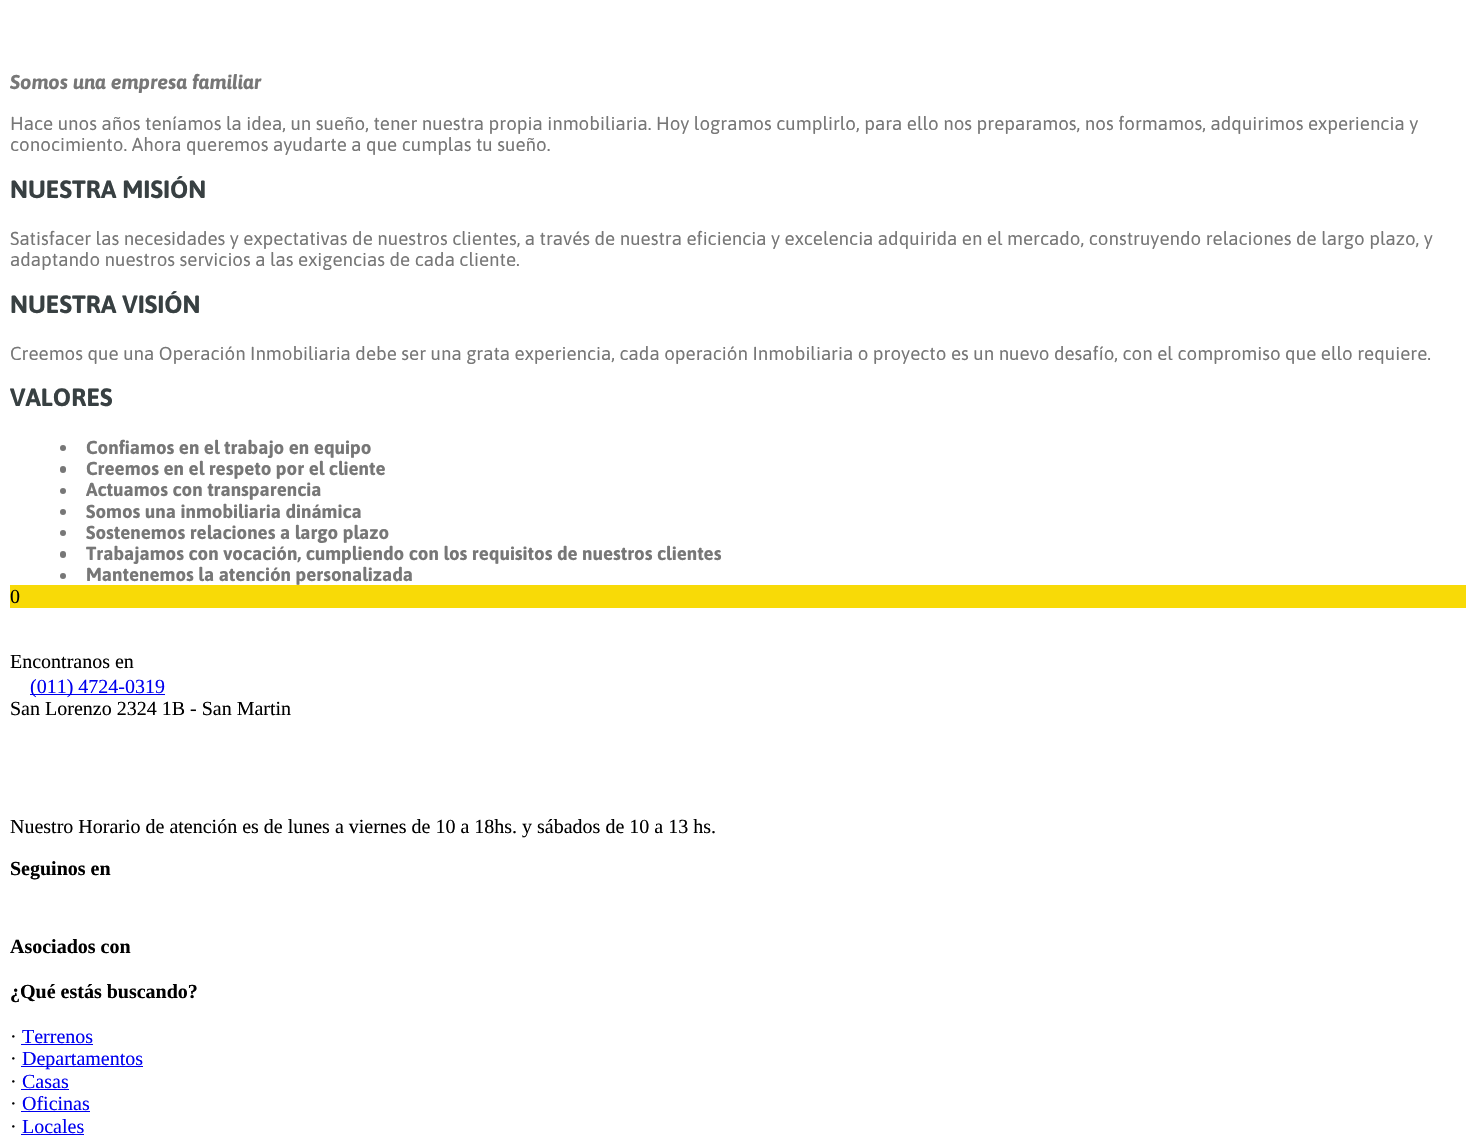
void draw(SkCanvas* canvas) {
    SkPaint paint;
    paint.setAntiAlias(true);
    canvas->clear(0xFFFFFFFF);
    SkFont font1(fontMgr->matchFamilyStyle("Asap", SkFontStyle::BoldItalic()), 20);
    font1.setSubpixel(true);
    paint.setColor(0xFF777777);
    canvas->drawString("Somos una empresa familiar", 10, 89, font1, paint);
    SkFont font2(fontMgr->matchFamilyStyle("Asap", SkFontStyle::Normal()), 18.75f);
    font2.setSubpixel(true);
    canvas->drawString("Hace unos años teníamos la idea, un sueño, tener nuestra propia inmobiliaria. Hoy logramos cumplirlo, para ello nos preparamos, nos formamos, adquirimos experiencia y", 10, 130, font2, paint);
    canvas->drawString("conocimiento. Ahora queremos ayudarte a que cumplas tu sueño.", 10, 151, font2, paint);
    SkFont font3(fontMgr->matchFamilyStyle("Asap", SkFontStyle::Bold()), 25);
    font3.setSubpixel(true);
    paint.setColor(0xFF384042);
    canvas->drawString("NUESTRA MISIÓN", 10, 198, font3, paint);
    paint.setColor(0xFF777777);
    canvas->drawString("Satisfacer las necesidades y expectativas de nuestros clientes, a través de nuestra eficiencia y excelencia adquirida en el mercado, construyendo relaciones de largo plazo, y", 10, 245, font2, paint);
    canvas->drawString("adaptando nuestros servicios a las exigencias de cada cliente.", 10, 266, font2, paint);
    paint.setColor(0xFF384042);
    canvas->drawString("NUESTRA VISIÓN", 10, 313, font3, paint);
    paint.setColor(0xFF777777);
    canvas->drawString("Creemos que una Operación Inmobiliaria debe ser una grata experiencia, cada operación Inmobiliaria o proyecto es un nuevo desafío, con el compromiso que ello requiere.", 10, 360, font2, paint);
    paint.setColor(0xFF384042);
    canvas->drawString("VALORES", 10, 406, font3, paint);
    paint.setColor(0xFF777777);
    canvas->drawCircle(63, 448, 3, paint);
    SkFont font4(fontMgr->matchFamilyStyle("Asap", SkFontStyle::Bold()), 18.75f);
    font4.setSubpixel(true);
    canvas->drawString("Confiamos en el trabajo en equipo", 86, 454, font4, paint);
    canvas->drawRoundRect(SkRect::MakeXYWH(60, 466, 6, 7), 3, 3, paint);
    canvas->drawString("Creemos en el respeto por el cliente", 86, 475, font4, paint);
    canvas->drawCircle(63, 491, 3, paint);
    canvas->drawString("Actuamos con transparencia", 86, 496, font4, paint);
    canvas->drawCircle(63, 512, 3, paint);
    canvas->drawString("Somos una inmobiliaria dinámica", 86, 518, font4, paint);
    canvas->drawCircle(63, 533, 3, paint);
    canvas->drawString("Sostenemos relaciones a largo plazo", 86, 539, font4, paint);
    canvas->drawRoundRect(SkRect::MakeXYWH(60, 551, 6, 7), 3, 3, paint);
    canvas->drawString("Trabajamos con vocación, cumpliendo con los requisitos de nuestros clientes", 86, 560, font4, paint);
    canvas->drawCircle(63, 576, 3, paint);
    canvas->drawString("Mantenemos la atención personalizada", 86, 581, font4, paint);
    paint.setColor(0xFFF8DA07);
    canvas->drawRect(SkRect::MakeXYWH(10, 585, 1456, 23), paint);
    SkFont font5(fontMgr->matchFamilyStyle("Liberation Serif", SkFontStyle::Normal()), 20);
    font5.setSubpixel(true);
    paint.setColor(0xFF000000);
    canvas->drawString("0", 10, 603, font5, paint);
    canvas->drawString("Encontranos en", 10, 668, font5, paint);
    paint.setColor(0xFF0000EE);
    canvas->drawRect(SkRect::MakeXYWH(30, 694, 135, 1), paint);
    canvas->drawString("(011) 4724-0319", 30, 693, font5, paint);
    paint.setColor(0xFF000000);
    canvas->drawString("San Lorenzo 2324 1B - San Martin", 10, 715, font5, paint);
    canvas->drawString("Nuestro Horario de atención es de lunes a viernes de 10 a 18hs. y sábados de 10 a 13 hs.", 10, 833, font5, paint);
    SkFont font6(fontMgr->matchFamilyStyle("Liberation Serif", SkFontStyle::Bold()), 20);
    font6.setSubpixel(true);
    canvas->drawString("Seguinos en", 10, 875, font6, paint);
    canvas->drawString("Asociados con", 10, 953, font6, paint);
    canvas->drawString("¿Qué estás buscando?", 10, 998, font6, paint);
    canvas->drawString("·", 10, 1043, font5, paint);
    paint.setColor(0xFF0000EE);
    canvas->drawString("Terrenos", 22, 1043, font5, paint);
    canvas->drawRect(SkRect::MakeXYWH(21, 1044, 72, 1), paint);
    paint.setColor(0xFF000000);
    canvas->drawString("·", 10, 1065, font5, paint);
    paint.setColor(0xFF0000EE);
    canvas->drawRect(SkRect::MakeXYWH(21, 1066, 122, 1), paint);
    canvas->drawString("Departamentos", 22, 1065, font5, paint);
    paint.setColor(0xFF000000);
    canvas->drawString("·", 10, 1088, font5, paint);
    paint.setColor(0xFF0000EE);
    canvas->drawString("Casas", 22, 1088, font5, paint);
    canvas->drawRect(SkRect::MakeXYWH(21, 1089, 48, 1), paint);
    paint.setColor(0xFF000000);
    canvas->drawString("·", 10, 1110, font5, paint);
    paint.setColor(0xFF0000EE);
    canvas->drawString("Oficinas", 22, 1110, font5, paint);
    canvas->drawRect(SkRect::MakeXYWH(21, 1111, 69, 1), paint);
    paint.setColor(0xFF000000);
    canvas->drawString("·", 10, 1133, font5, paint);
    paint.setColor(0xFF0000EE);
    canvas->drawString("Locales", 22, 1133, font5, paint);
    canvas->drawRect(SkRect::MakeXYWH(21, 1134, 63, 1), paint);
}
